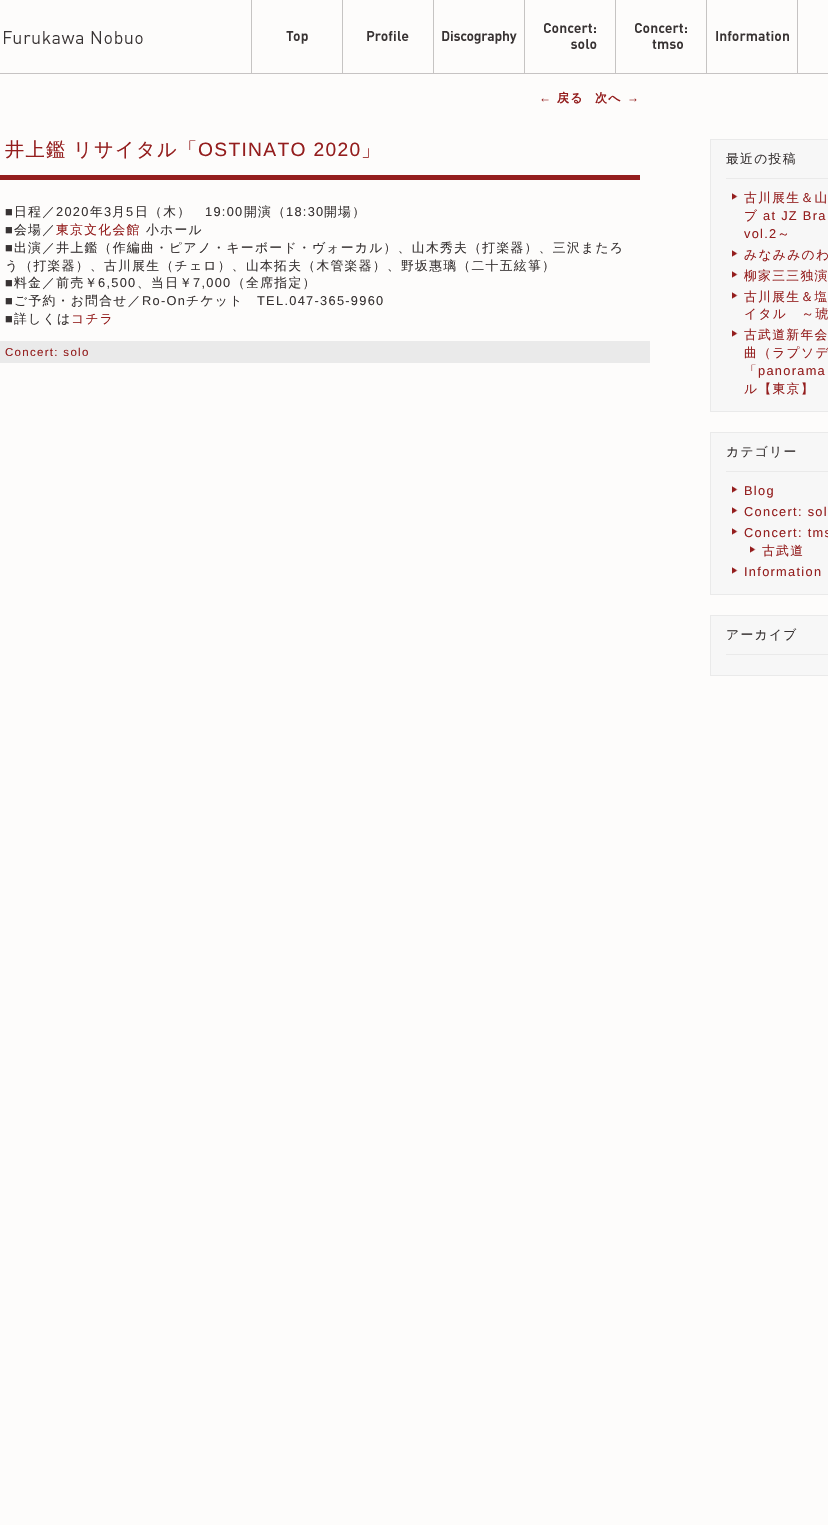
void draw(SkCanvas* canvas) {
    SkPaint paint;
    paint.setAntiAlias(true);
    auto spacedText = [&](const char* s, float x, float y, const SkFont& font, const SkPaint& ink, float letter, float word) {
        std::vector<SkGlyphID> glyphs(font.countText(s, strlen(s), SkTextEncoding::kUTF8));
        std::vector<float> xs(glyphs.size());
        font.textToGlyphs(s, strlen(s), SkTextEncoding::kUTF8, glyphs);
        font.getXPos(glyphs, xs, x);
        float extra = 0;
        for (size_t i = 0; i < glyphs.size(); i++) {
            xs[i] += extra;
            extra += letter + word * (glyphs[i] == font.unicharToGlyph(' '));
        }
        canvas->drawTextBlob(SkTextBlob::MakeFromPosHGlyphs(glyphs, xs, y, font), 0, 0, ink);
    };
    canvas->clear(0xFFFDFCFB);
    paint.setColor(0xFFC6C3C3);
    canvas->drawRect(SkRect::MakeXYWH(0, 73, 828, 1), paint);
    canvas->drawImageRect(SkImages::DeferredFromEncodedData(SkData::MakeFromFileName("img1.png")), SkRect::MakeXYWH(4, 31, 139, 13), SkSamplingOptions());
    canvas->drawImageRect(SkImages::DeferredFromEncodedData(SkData::MakeFromFileName("img2.png")), SkRect::MakeXYWH(251, 0, 57, 73), SkSamplingOptions());
    canvas->drawImageRect(SkImages::DeferredFromEncodedData(SkData::MakeFromFileName("img3.png")), SkRect::MakeXYWH(342, 0, 67, 73), SkSamplingOptions());
    canvas->drawImageRect(SkImages::DeferredFromEncodedData(SkData::MakeFromFileName("img4.png")), SkRect::MakeXYWH(433, 0, 84, 73), SkSamplingOptions());
    canvas->drawImageRect(SkImages::DeferredFromEncodedData(SkData::MakeFromFileName("img5.png")), SkRect::MakeXYWH(524, 0, 73, 73), SkSamplingOptions());
    canvas->drawImageRect(SkImages::DeferredFromEncodedData(SkData::MakeFromFileName("img6.png")), SkRect::MakeXYWH(615, 0, 72, 73), SkSamplingOptions());
    canvas->drawImageRect(SkImages::DeferredFromEncodedData(SkData::MakeFromFileName("img7.png")), SkRect::MakeXYWH(706, 0, 83, 73), SkSamplingOptions());
    canvas->drawRect(SkRect::MakeXYWH(797, 0, 1, 73), paint);
    SkFont font1(fontMgr->matchFamilyStyle("Liberation Sans", SkFontStyle::Normal()), 12);
    font1.setSubpixel(true);
    paint.setColor(0xFF941E1E);
    spacedText("←", 539, 102, font1, paint, 1.3f, 0);
    SkFont font2(fontMgr->matchFamilyStyle("WenQuanYi Zen Hei", SkFontStyle::Bold()), 12);
    font2.setSubpixel(true);
    spacedText("戻る", 557, 102, font2, paint, 1.3f, 0);
    spacedText("次へ", 595, 102, font2, paint, 1.3f, 0);
    spacedText("→", 627, 102, font1, paint, 1.3f, 0);
    canvas->drawRect(SkRect::MakeXYWH(0, 175, 640, 5), paint);
    SkFont font3(fontMgr->matchFamilyStyle("WenQuanYi Zen Hei", SkFontStyle(500, SkFontStyle::kNormal_Width, SkFontStyle::kUpright_Slant)), 19.25f);
    font3.setSubpixel(true);
    spacedText("井上鑑", 5, 156, font3, paint, 1.3f, 0);
    spacedText("リサイタル「", 73, 156, font3, paint, 1.3f, 0);
    SkFont font4(fontMgr->matchFamilyStyle("Liberation Sans", SkFontStyle::Normal()), 19.25f);
    font4.setSubpixel(true);
    spacedText("OSTINATO 2020", 198, 156, font4, paint, 1.3f, 0);
    spacedText("」", 361, 156, font3, paint, 1.3f, 0);
    SkFont font5(fontMgr->matchFamilyStyle("Liberation Sans", SkFontStyle::Normal()), 12.8f);
    font5.setSubpixel(true);
    paint.setColor(0xFF383333);
    spacedText("■", 5, 216, font5, paint, 1.3f, 0);
    SkFont font6(fontMgr->matchFamilyStyle("WenQuanYi Zen Hei", SkFontStyle(500, SkFontStyle::kNormal_Width, SkFontStyle::kUpright_Slant)), 12.8f);
    font6.setSubpixel(true);
    spacedText("日程／", 14, 216, font6, paint, 1.3f, 0);
    spacedText("2020", 56, 216, font5, paint, 1.3f, 0);
    spacedText("年", 90, 216, font6, paint, 1.3f, 0);
    spacedText("3", 104, 216, font5, paint, 1.3f, 0);
    spacedText("月", 112, 216, font6, paint, 1.3f, 0);
    spacedText("5", 126, 216, font5, paint, 1.3f, 0);
    spacedText("日（木）", 135, 216, font6, paint, 1.3f, 0);
    spacedText("19:00", 205, 216, font5, paint, 1.3f, 0);
    spacedText("開演（", 244, 216, font6, paint, 1.3f, 0);
    spacedText("18:30", 286, 216, font5, paint, 1.3f, 0);
    spacedText("開場）", 324, 216, font6, paint, 1.3f, 0);
    spacedText("■", 5, 234, font5, paint, 1.3f, 0);
    spacedText("会場／", 14, 234, font6, paint, 1.3f, 0);
    paint.setColor(0xFF941E1E);
    spacedText("東京文化会館", 56, 234, font6, paint, 1.3f, 0);
    paint.setColor(0xFF383333);
    spacedText("小ホール", 146, 234, font6, paint, 1.3f, 0);
    spacedText("■", 5, 252, font5, paint, 1.3f, 0);
    spacedText("出演／井上鑑（作編曲・ピアノ・キーボード・ヴォーカル）、山木秀夫（打楽器）、三沢またろ", 14, 252, font6, paint, 1.3f, 0);
    spacedText("う（打楽器）、古川展生（チェロ）、山本拓夫（木管楽器）、野坂惠璃（二十五絃箏）", 5, 270, font6, paint, 1.3f, 0);
    spacedText("■", 5, 287, font5, paint, 1.3f, 0);
    spacedText("料金／前売￥", 14, 287, font6, paint, 1.3f, 0);
    spacedText("6,500", 98, 287, font5, paint, 1.3f, 0);
    spacedText("、当日￥", 137, 287, font6, paint, 1.3f, 0);
    spacedText("7,000", 193, 287, font5, paint, 1.3f, 0);
    spacedText("（全席指定）", 232, 287, font6, paint, 1.3f, 0);
    spacedText("■", 5, 305, font5, paint, 1.3f, 0);
    spacedText("ご予約・お問合せ／", 14, 305, font6, paint, 1.3f, 0);
    spacedText("Ro-On", 142, 305, font5, paint, 1.3f, 0);
    spacedText("チケット", 186, 305, font6, paint, 1.3f, 0);
    spacedText("TEL.047-365-9960", 257, 305, font5, paint, 1.3f, 0);
    spacedText("■", 5, 323, font5, paint, 1.3f, 0);
    spacedText("詳しくは", 14, 323, font6, paint, 1.3f, 0);
    paint.setColor(0xFF941E1E);
    spacedText("コチラ", 71, 323, font6, paint, 1.3f, 0);
    paint.setColor(0xFFEAEAEA);
    canvas->drawRect(SkRect::MakeXYWH(0, 341, 650, 22), paint);
    SkFont font7(fontMgr->matchFamilyStyle("Liberation Sans", SkFontStyle::Normal()), 11.5f);
    font7.setSubpixel(true);
    paint.setColor(0xFF941E1E);
    spacedText("Concert: solo", 5, 356, font7, paint, 1.3f, 0);
    paint.setColor(0xFFF7F7F7);
    canvas->drawRect(SkRect::MakeXYWH(710.5f, 139.5f, 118, 272), paint);
    paint.setStyle(SkPaint::kStroke_Style);
    paint.setStrokeWidth(1);
    paint.setColor(0xFFEAEAEA);
    canvas->drawRect(SkRect::MakeXYWH(710.5f, 139.5f, 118, 272), paint);
    paint.setStyle(SkPaint::kFill_Style);
    canvas->drawRect(SkRect::MakeXYWH(726, 178, 102, 1), paint);
    paint.setColor(0xFF383333);
    spacedText("最近の投稿", 726, 163, font6, paint, 1.3f, 0);
    canvas->drawImageRect(SkImages::DeferredFromEncodedData(SkData::MakeFromFileName("img8.png")), SkRect::MakeXYWH(732, 193, 6, 7), SkSamplingOptions());
    paint.setColor(0xFF941E1E);
    spacedText("古川展生＆山", 744, 202, font6, paint, 1.3f, 0);
    spacedText("ブ", 744, 220, font6, paint, 1.3f, 0);
    spacedText("at JZ Bra", 763, 220, font5, paint, 1.3f, 0);
    spacedText("vol.2", 744, 238, font5, paint, 1.3f, 0);
    spacedText("～", 777, 238, font6, paint, 1.3f, 0);
    canvas->drawImageRect(SkImages::DeferredFromEncodedData(SkData::MakeFromFileName("img8.png")), SkRect::MakeXYWH(732, 250, 6, 7), SkSamplingOptions());
    spacedText("みなみみのわ", 744, 259, font6, paint, 1.3f, 0);
    canvas->drawImageRect(SkImages::DeferredFromEncodedData(SkData::MakeFromFileName("img8.png")), SkRect::MakeXYWH(732, 271, 6, 7), SkSamplingOptions());
    spacedText("柳家三三独演", 744, 280, font6, paint, 1.3f, 0);
    canvas->drawImageRect(SkImages::DeferredFromEncodedData(SkData::MakeFromFileName("img8.png")), SkRect::MakeXYWH(732, 292, 6, 7), SkSamplingOptions());
    spacedText("古川展生＆塩", 744, 301, font6, paint, 1.3f, 0);
    spacedText("イタル　～琥", 744, 318, font6, paint, 1.3f, 0);
    canvas->drawImageRect(SkImages::DeferredFromEncodedData(SkData::MakeFromFileName("img8.png")), SkRect::MakeXYWH(732, 330, 6, 7), SkSamplingOptions());
    spacedText("古武道新年会", 744, 339, font6, paint, 1.3f, 0);
    spacedText("曲（ラプソデ", 744, 357, font6, paint, 1.3f, 0);
    spacedText("「", 744, 375, font6, paint, 1.3f, 0);
    spacedText("panorama", 758, 375, font5, paint, 1.3f, 0);
    spacedText("ル【東京】", 744, 393, font6, paint, 1.3f, 0);
    paint.setColor(0xFFF7F7F7);
    canvas->drawRect(SkRect::MakeXYWH(710.5f, 432.5f, 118, 162), paint);
    paint.setStyle(SkPaint::kStroke_Style);
    paint.setColor(0xFFEAEAEA);
    canvas->drawRect(SkRect::MakeXYWH(710.5f, 432.5f, 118, 162), paint);
    paint.setStyle(SkPaint::kFill_Style);
    canvas->drawRect(SkRect::MakeXYWH(726, 471, 102, 1), paint);
    paint.setColor(0xFF383333);
    spacedText("カテゴリー", 726, 456, font6, paint, 1.3f, 0);
    canvas->drawImageRect(SkImages::DeferredFromEncodedData(SkData::MakeFromFileName("img8.png")), SkRect::MakeXYWH(732, 486, 6, 7), SkSamplingOptions());
    paint.setColor(0xFF941E1E);
    spacedText("Blog", 744, 495, font5, paint, 1.3f, 0);
    canvas->drawImageRect(SkImages::DeferredFromEncodedData(SkData::MakeFromFileName("img8.png")), SkRect::MakeXYWH(732, 507, 6, 7), SkSamplingOptions());
    spacedText("Concert: sol", 744, 516, font5, paint, 1.3f, 0);
    canvas->drawImageRect(SkImages::DeferredFromEncodedData(SkData::MakeFromFileName("img8.png")), SkRect::MakeXYWH(732, 528, 6, 7), SkSamplingOptions());
    spacedText("Concert: tms", 744, 537, font5, paint, 1.3f, 0);
    canvas->drawImageRect(SkImages::DeferredFromEncodedData(SkData::MakeFromFileName("img8.png")), SkRect::MakeXYWH(750, 546, 6, 7), SkSamplingOptions());
    spacedText("古武道", 762, 555, font6, paint, 1.3f, 0);
    canvas->drawImageRect(SkImages::DeferredFromEncodedData(SkData::MakeFromFileName("img8.png")), SkRect::MakeXYWH(732, 567, 6, 7), SkSamplingOptions());
    spacedText("Information", 744, 576, font5, paint, 1.3f, 0);
    paint.setColor(0xFFF7F7F7);
    canvas->drawRect(SkRect::MakeXYWH(710.5f, 615.5f, 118, 60), paint);
    paint.setStyle(SkPaint::kStroke_Style);
    paint.setColor(0xFFEAEAEA);
    canvas->drawRect(SkRect::MakeXYWH(710.5f, 615.5f, 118, 60), paint);
    paint.setStyle(SkPaint::kFill_Style);
    canvas->drawRect(SkRect::MakeXYWH(726, 654, 102, 1), paint);
    paint.setColor(0xFF383333);
    spacedText("アーカイブ", 726, 639, font6, paint, 1.3f, 0);
}
